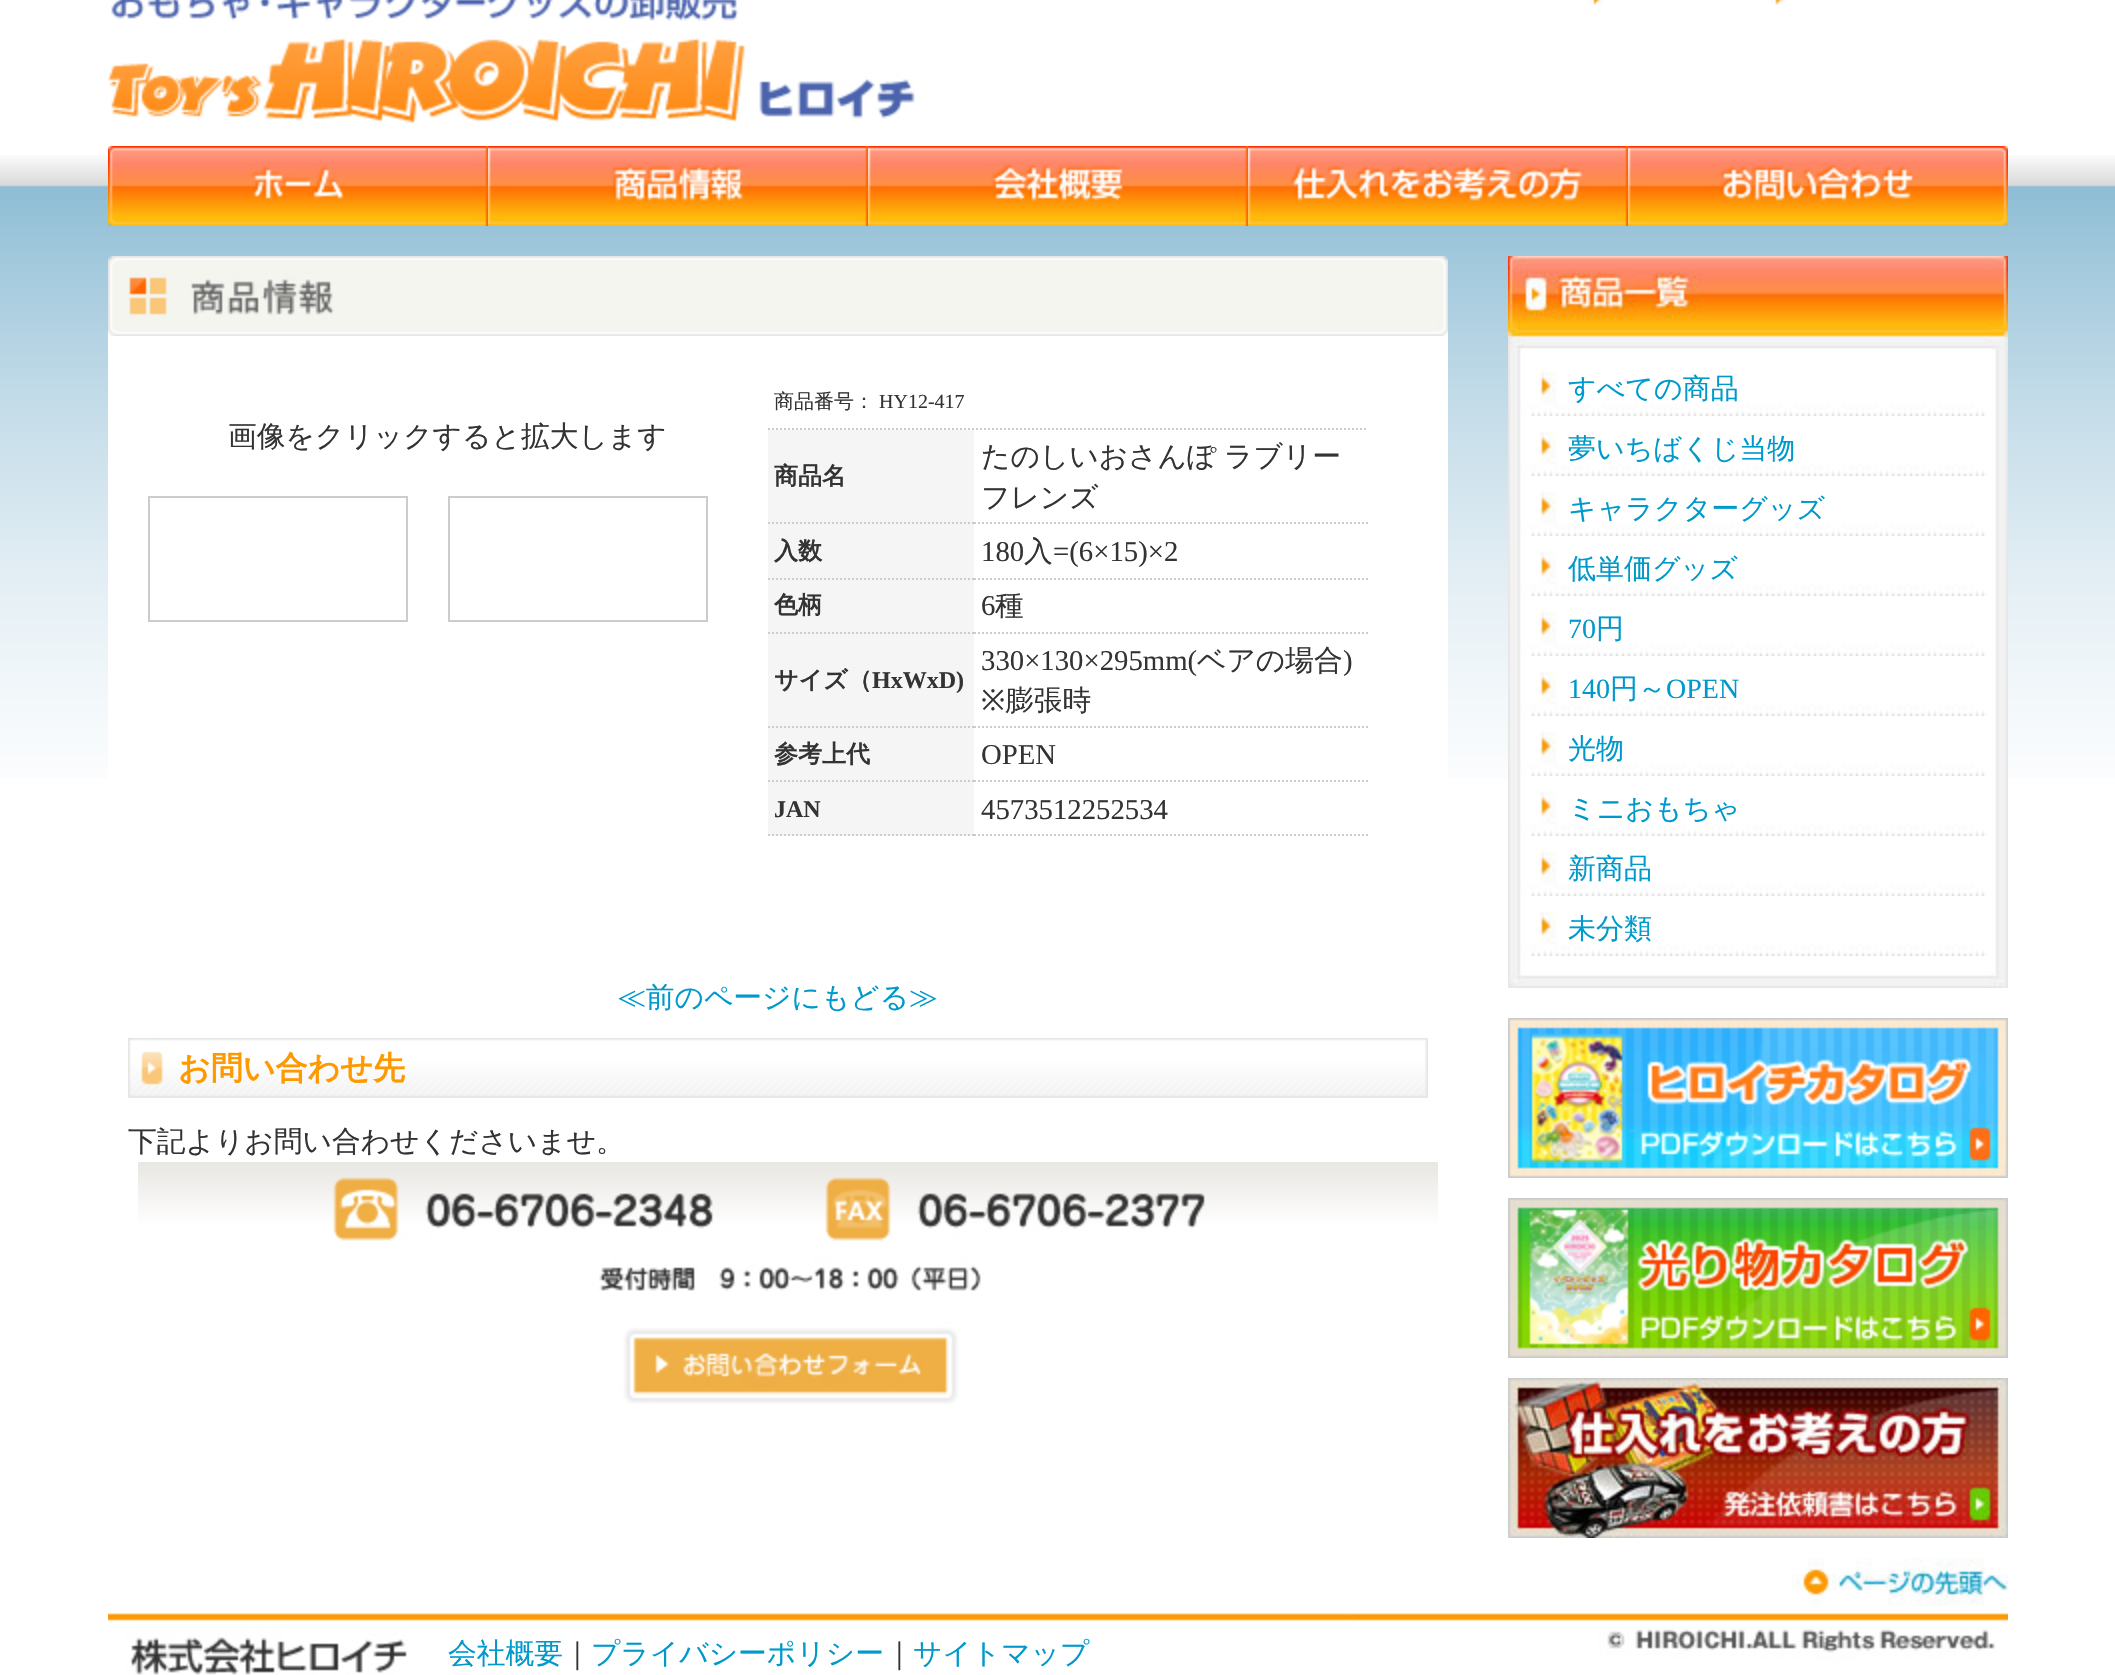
void draw(SkCanvas* canvas) {
    SkPaint paint;
    paint.setAntiAlias(true);
    auto spacedText = [&](const char* s, float x, float y, const SkFont& font, const SkPaint& ink, float letter, float word) {
        std::vector<SkGlyphID> glyphs(font.countText(s, strlen(s), SkTextEncoding::kUTF8));
        std::vector<float> xs(glyphs.size());
        font.textToGlyphs(s, strlen(s), SkTextEncoding::kUTF8, glyphs);
        font.getXPos(glyphs, xs, x);
        float extra = 0;
        for (size_t i = 0; i < glyphs.size(); i++) {
            xs[i] += extra;
            extra += letter + word * (glyphs[i] == font.unicharToGlyph(' '));
        }
        canvas->drawTextBlob(SkTextBlob::MakeFromPosHGlyphs(glyphs, xs, y, font), 0, 0, ink);
    };
    canvas->clear(0xFFFFFFFF);
    canvas->drawImageRect(SkImages::DeferredFromEncodedData(SkData::MakeFromFileName("img1.png")), SkRect::MakeXYWH(0, 155, 2115, 623), SkSamplingOptions());
    canvas->drawImageRect(SkImages::DeferredFromEncodedData(SkData::MakeFromFileName("img2.png")), SkRect::MakeXYWH(108, 0, 807, 123), SkSamplingOptions());
    canvas->drawImageRect(SkImages::DeferredFromEncodedData(SkData::MakeFromFileName("img3.png")), SkRect::MakeXYWH(1588, 0, 16, 5), SkSamplingOptions());
    canvas->drawImageRect(SkImages::DeferredFromEncodedData(SkData::MakeFromFileName("img3.png")), SkRect::MakeXYWH(1770, 0, 16, 5), SkSamplingOptions());
    canvas->drawImageRect(SkImages::DeferredFromEncodedData(SkData::MakeFromFileName("img4.png")), SkRect::MakeXYWH(108, 146, 380, 80), SkSamplingOptions());
    canvas->drawImageRect(SkImages::DeferredFromEncodedData(SkData::MakeFromFileName("img5.png")), SkRect::MakeXYWH(488, 146, 380, 80), SkSamplingOptions());
    canvas->drawImageRect(SkImages::DeferredFromEncodedData(SkData::MakeFromFileName("img6.png")), SkRect::MakeXYWH(868, 146, 380, 80), SkSamplingOptions());
    canvas->drawImageRect(SkImages::DeferredFromEncodedData(SkData::MakeFromFileName("img7.png")), SkRect::MakeXYWH(1248, 146, 380, 80), SkSamplingOptions());
    canvas->drawImageRect(SkImages::DeferredFromEncodedData(SkData::MakeFromFileName("img8.png")), SkRect::MakeXYWH(1628, 146, 380, 80), SkSamplingOptions());
    paint.setColor(0xFFFFFFFF);
    canvas->drawRect(SkRect::MakeXYWH(108, 336, 1340, 442), paint);
    canvas->drawImageRect(SkImages::DeferredFromEncodedData(SkData::MakeFromFileName("img9.png")), SkRect::MakeXYWH(108, 256, 1340, 80), SkSamplingOptions());
    SkFont font1(fontMgr->matchFamilyStyle("WenQuanYi Zen Hei", SkFontStyle(500, SkFontStyle::kNormal_Width, SkFontStyle::kUpright_Slant)), 28.75f);
    font1.setSubpixel(true);
    paint.setColor(0xFF333333);
    canvas->drawString("画像をクリックすると拡大します", 228, 446, font1, paint);
    paint.setStyle(SkPaint::kStroke_Style);
    paint.setStrokeWidth(2);
    paint.setColor(0xFFCCCCCC);
    canvas->drawRect(SkRect::MakeXYWH(149, 497, 258, 124), paint);
    canvas->drawRect(SkRect::MakeXYWH(449, 497, 258, 124), paint);
    paint.setPathEffect(SkDashPathEffect::Make({{2, 2}}, 0));
    canvas->drawPath(SkPathBuilder().moveTo(768, 429).lineTo(1368, 429).detach(), paint);
    paint.setPathEffect(nullptr);
    SkFont font2(fontMgr->matchFamilyStyle("WenQuanYi Zen Hei", SkFontStyle(500, SkFontStyle::kNormal_Width, SkFontStyle::kUpright_Slant)), 20);
    font2.setSubpixel(true);
    paint.setStyle(SkPaint::kFill_Style);
    paint.setColor(0xFF333333);
    canvas->drawString("商品番号：", 774, 408, font2, paint);
    SkFont font3(fontMgr->matchFamilyStyle("Liberation Serif", SkFontStyle::Normal()), 20);
    font3.setSubpixel(true);
    canvas->drawString("HY12-417", 879, 408, font3, paint);
    paint.setColor(0xFFF5F5F5);
    canvas->drawRect(SkRect::MakeXYWH(768, 430, 206, 406), paint);
    paint.setStyle(SkPaint::kStroke_Style);
    paint.setColor(0xFFCCCCCC);
    paint.setPathEffect(SkDashPathEffect::Make({{2, 2}}, 0));
    canvas->drawPath(SkPathBuilder().moveTo(768, 523).lineTo(974, 523).detach(), paint);
    paint.setPathEffect(nullptr);
    SkFont font4(fontMgr->matchFamilyStyle("WenQuanYi Zen Hei", SkFontStyle::Bold()), 24);
    font4.setSubpixel(true);
    paint.setStyle(SkPaint::kFill_Style);
    paint.setColor(0xFF333333);
    canvas->drawString("商品名", 774, 484, font4, paint);
    paint.setStyle(SkPaint::kStroke_Style);
    paint.setColor(0xFFCCCCCC);
    paint.setPathEffect(SkDashPathEffect::Make({{2, 2}}, 0));
    canvas->drawPath(SkPathBuilder().moveTo(974, 523).lineTo(1368, 523).detach(), paint);
    paint.setPathEffect(nullptr);
    paint.setStyle(SkPaint::kFill_Style);
    paint.setColor(0xFF333333);
    spacedText("たのしいおさんぽ ラブリー", 981, 466, font1, paint, 0, -1);
    canvas->drawString("フレンズ", 981, 507, font1, paint);
    paint.setStyle(SkPaint::kStroke_Style);
    paint.setColor(0xFFCCCCCC);
    paint.setPathEffect(SkDashPathEffect::Make({{2, 2}}, 0));
    canvas->drawPath(SkPathBuilder().moveTo(768, 579).lineTo(974, 579).detach(), paint);
    paint.setPathEffect(nullptr);
    paint.setStyle(SkPaint::kFill_Style);
    paint.setColor(0xFF333333);
    canvas->drawString("入数", 774, 559, font4, paint);
    paint.setStyle(SkPaint::kStroke_Style);
    paint.setColor(0xFFCCCCCC);
    paint.setPathEffect(SkDashPathEffect::Make({{2, 2}}, 0));
    canvas->drawPath(SkPathBuilder().moveTo(974, 579).lineTo(1368, 579).detach(), paint);
    paint.setPathEffect(nullptr);
    SkFont font5(fontMgr->matchFamilyStyle("Liberation Serif", SkFontStyle::Normal()), 28.75f);
    font5.setSubpixel(true);
    paint.setStyle(SkPaint::kFill_Style);
    paint.setColor(0xFF333333);
    canvas->drawString("180", 981, 561, font5, paint);
    canvas->drawString("入", 1024, 561, font1, paint);
    canvas->drawString("=(6×15)×2", 1053, 561, font5, paint);
    paint.setStyle(SkPaint::kStroke_Style);
    paint.setColor(0xFFCCCCCC);
    paint.setPathEffect(SkDashPathEffect::Make({{2, 2}}, 0));
    canvas->drawPath(SkPathBuilder().moveTo(768, 633).lineTo(974, 633).detach(), paint);
    paint.setPathEffect(nullptr);
    paint.setStyle(SkPaint::kFill_Style);
    paint.setColor(0xFF333333);
    canvas->drawString("色柄", 774, 613, font4, paint);
    paint.setStyle(SkPaint::kStroke_Style);
    paint.setColor(0xFFCCCCCC);
    paint.setPathEffect(SkDashPathEffect::Make({{2, 2}}, 0));
    canvas->drawPath(SkPathBuilder().moveTo(974, 633).lineTo(1368, 633).detach(), paint);
    paint.setPathEffect(nullptr);
    paint.setStyle(SkPaint::kFill_Style);
    paint.setColor(0xFF333333);
    canvas->drawString("6", 981, 615, font5, paint);
    canvas->drawString("種", 995, 615, font1, paint);
    paint.setStyle(SkPaint::kStroke_Style);
    paint.setColor(0xFFCCCCCC);
    paint.setPathEffect(SkDashPathEffect::Make({{2, 2}}, 0));
    canvas->drawPath(SkPathBuilder().moveTo(768, 727).lineTo(974, 727).detach(), paint);
    paint.setPathEffect(nullptr);
    paint.setStyle(SkPaint::kFill_Style);
    paint.setColor(0xFF333333);
    canvas->drawString("サイズ（", 774, 688, font4, paint);
    SkFont font6(fontMgr->matchFamilyStyle("Liberation Serif", SkFontStyle::Bold()), 24);
    font6.setSubpixel(true);
    canvas->drawString("HxWxD)", 872, 688, font6, paint);
    paint.setStyle(SkPaint::kStroke_Style);
    paint.setColor(0xFFCCCCCC);
    paint.setPathEffect(SkDashPathEffect::Make({{2, 2}}, 0));
    canvas->drawPath(SkPathBuilder().moveTo(974, 727).lineTo(1368, 727).detach(), paint);
    paint.setPathEffect(nullptr);
    paint.setStyle(SkPaint::kFill_Style);
    paint.setColor(0xFF333333);
    canvas->drawString("330×130×295mm(", 981, 670, font5, paint);
    canvas->drawString("ベアの場合", 1197, 670, font1, paint);
    canvas->drawString(")", 1343, 670, font5, paint);
    SkFont font7(fontMgr->matchFamilyStyle("Noto Sans", SkFontStyle::Normal()), 28.75f);
    font7.setSubpixel(true);
    canvas->drawString("※", 981, 710, font7, paint);
    canvas->drawString("膨張時", 1005, 710, font1, paint);
    paint.setStyle(SkPaint::kStroke_Style);
    paint.setColor(0xFFCCCCCC);
    paint.setPathEffect(SkDashPathEffect::Make({{2, 2}}, 0));
    canvas->drawPath(SkPathBuilder().moveTo(768, 781).lineTo(974, 781).detach(), paint);
    paint.setPathEffect(nullptr);
    paint.setStyle(SkPaint::kFill_Style);
    paint.setColor(0xFF333333);
    canvas->drawString("参考上代", 774, 762, font4, paint);
    paint.setStyle(SkPaint::kStroke_Style);
    paint.setColor(0xFFCCCCCC);
    paint.setPathEffect(SkDashPathEffect::Make({{2, 2}}, 0));
    canvas->drawPath(SkPathBuilder().moveTo(974, 781).lineTo(1368, 781).detach(), paint);
    paint.setPathEffect(nullptr);
    paint.setStyle(SkPaint::kFill_Style);
    paint.setColor(0xFF333333);
    canvas->drawString("OPEN", 981, 764, font5, paint);
    paint.setStyle(SkPaint::kStroke_Style);
    paint.setColor(0xFFCCCCCC);
    paint.setPathEffect(SkDashPathEffect::Make({{2, 2}}, 0));
    canvas->drawPath(SkPathBuilder().moveTo(768, 835).lineTo(974, 835).detach(), paint);
    paint.setPathEffect(nullptr);
    paint.setStyle(SkPaint::kFill_Style);
    paint.setColor(0xFF333333);
    canvas->drawString("JAN", 774, 817, font6, paint);
    paint.setStyle(SkPaint::kStroke_Style);
    paint.setColor(0xFFCCCCCC);
    paint.setPathEffect(SkDashPathEffect::Make({{2, 2}}, 0));
    canvas->drawPath(SkPathBuilder().moveTo(974, 835).lineTo(1368, 835).detach(), paint);
    paint.setPathEffect(nullptr);
    paint.setStyle(SkPaint::kFill_Style);
    paint.setColor(0xFF333333);
    canvas->drawString("4573512252534", 981, 819, font5, paint);
    paint.setColor(0xFF0099CC);
    canvas->drawString("≪前のページにもどる≫", 617, 1007, font1, paint);
    canvas->drawImageRect(SkImages::DeferredFromEncodedData(SkData::MakeFromFileName("img10.png")), SkRect::MakeXYWH(128, 1038, 1300, 60), SkSamplingOptions());
    SkFont font8(fontMgr->matchFamilyStyle("WenQuanYi Zen Hei", SkFontStyle::Bold()), 32);
    font8.setSubpixel(true);
    paint.setColor(0xFFFF9900);
    canvas->drawString("お問い合わせ先", 178, 1079, font8, paint);
    paint.setColor(0xFF333333);
    canvas->drawString("下記よりお問い合わせくださいませ。", 128, 1151, font1, paint);
    canvas->drawImageRect(SkImages::DeferredFromEncodedData(SkData::MakeFromFileName("img11.png")), SkRect::MakeXYWH(138, 1162, 1300, 242), SkSamplingOptions());
    canvas->drawImageRect(SkImages::DeferredFromEncodedData(SkData::MakeFromFileName("img12.png")), SkRect::MakeXYWH(1508, 256, 500, 78), SkSamplingOptions());
    canvas->drawImageRect(SkImages::DeferredFromEncodedData(SkData::MakeFromFileName("img13.png")), SkRect::MakeXYWH(1508, 956, 500, 32), SkSamplingOptions());
    canvas->drawImageRect(SkImages::DeferredFromEncodedData(SkData::MakeFromFileName("img14.png")), SkRect::MakeXYWH(1508, 334, 500, 22), SkSamplingOptions());
    canvas->drawImageRect(SkImages::DeferredFromEncodedData(SkData::MakeFromFileName("img15.png")), SkRect::MakeXYWH(1508, 356, 500, 60), SkSamplingOptions());
    SkFont font9(fontMgr->matchFamilyStyle("WenQuanYi Zen Hei", SkFontStyle(500, SkFontStyle::kNormal_Width, SkFontStyle::kUpright_Slant)), 28);
    font9.setSubpixel(true);
    paint.setColor(0xFF0099CC);
    canvas->drawString("すべての商品", 1568, 398, font9, paint);
    canvas->drawImageRect(SkImages::DeferredFromEncodedData(SkData::MakeFromFileName("img15.png")), SkRect::MakeXYWH(1508, 416, 500, 60), SkSamplingOptions());
    canvas->drawString("夢いちばくじ当物", 1568, 458, font9, paint);
    canvas->drawImageRect(SkImages::DeferredFromEncodedData(SkData::MakeFromFileName("img15.png")), SkRect::MakeXYWH(1508, 476, 500, 60), SkSamplingOptions());
    canvas->drawString("キャラクターグッズ", 1568, 518, font9, paint);
    canvas->drawImageRect(SkImages::DeferredFromEncodedData(SkData::MakeFromFileName("img15.png")), SkRect::MakeXYWH(1508, 536, 500, 60), SkSamplingOptions());
    canvas->drawString("低単価グッズ", 1568, 578, font9, paint);
    canvas->drawImageRect(SkImages::DeferredFromEncodedData(SkData::MakeFromFileName("img15.png")), SkRect::MakeXYWH(1508, 596, 500, 60), SkSamplingOptions());
    SkFont font10(fontMgr->matchFamilyStyle("Liberation Serif", SkFontStyle::Normal()), 28);
    font10.setSubpixel(true);
    canvas->drawString("70", 1568, 638, font10, paint);
    canvas->drawString("円", 1596, 638, font9, paint);
    canvas->drawImageRect(SkImages::DeferredFromEncodedData(SkData::MakeFromFileName("img15.png")), SkRect::MakeXYWH(1508, 656, 500, 60), SkSamplingOptions());
    canvas->drawString("140", 1568, 698, font10, paint);
    canvas->drawString("円～", 1610, 698, font9, paint);
    canvas->drawString("OPEN", 1666, 698, font10, paint);
    canvas->drawImageRect(SkImages::DeferredFromEncodedData(SkData::MakeFromFileName("img15.png")), SkRect::MakeXYWH(1508, 716, 500, 60), SkSamplingOptions());
    canvas->drawString("光物", 1568, 758, font9, paint);
    canvas->drawImageRect(SkImages::DeferredFromEncodedData(SkData::MakeFromFileName("img15.png")), SkRect::MakeXYWH(1508, 776, 500, 60), SkSamplingOptions());
    canvas->drawString("ミニおもちゃ", 1568, 818, font9, paint);
    canvas->drawImageRect(SkImages::DeferredFromEncodedData(SkData::MakeFromFileName("img15.png")), SkRect::MakeXYWH(1508, 836, 500, 60), SkSamplingOptions());
    canvas->drawString("新商品", 1568, 878, font9, paint);
    canvas->drawImageRect(SkImages::DeferredFromEncodedData(SkData::MakeFromFileName("img15.png")), SkRect::MakeXYWH(1508, 896, 500, 60), SkSamplingOptions());
    canvas->drawString("未分類", 1568, 938, font9, paint);
    canvas->drawImageRect(SkImages::DeferredFromEncodedData(SkData::MakeFromFileName("img16.png")), SkRect::MakeXYWH(1508, 1018, 500, 160), SkSamplingOptions());
    canvas->drawImageRect(SkImages::DeferredFromEncodedData(SkData::MakeFromFileName("img17.png")), SkRect::MakeXYWH(1508, 1198, 500, 160), SkSamplingOptions());
    canvas->drawImageRect(SkImages::DeferredFromEncodedData(SkData::MakeFromFileName("img18.png")), SkRect::MakeXYWH(1508, 1378, 500, 160), SkSamplingOptions());
    canvas->drawImageRect(SkImages::DeferredFromEncodedData(SkData::MakeFromFileName("img19.png")), SkRect::MakeXYWH(1792, 1558, 216, 49), SkSamplingOptions());
    canvas->drawImageRect(SkImages::DeferredFromEncodedData(SkData::MakeFromFileName("img20.png")), SkRect::MakeXYWH(108, 1612, 1900, 63), SkSamplingOptions());
    canvas->drawString("会社概要", 448, 1663, font1, paint);
    paint.setColor(0xFF333333);
    canvas->drawString("｜", 563, 1663, font1, paint);
    paint.setColor(0xFF0099CC);
    canvas->drawString("プライバシーポリシー", 591, 1663, font1, paint);
    paint.setColor(0xFF333333);
    canvas->drawString("｜", 885, 1663, font1, paint);
    paint.setColor(0xFF0099CC);
    canvas->drawString("サイトマップ", 913, 1663, font1, paint);
}
